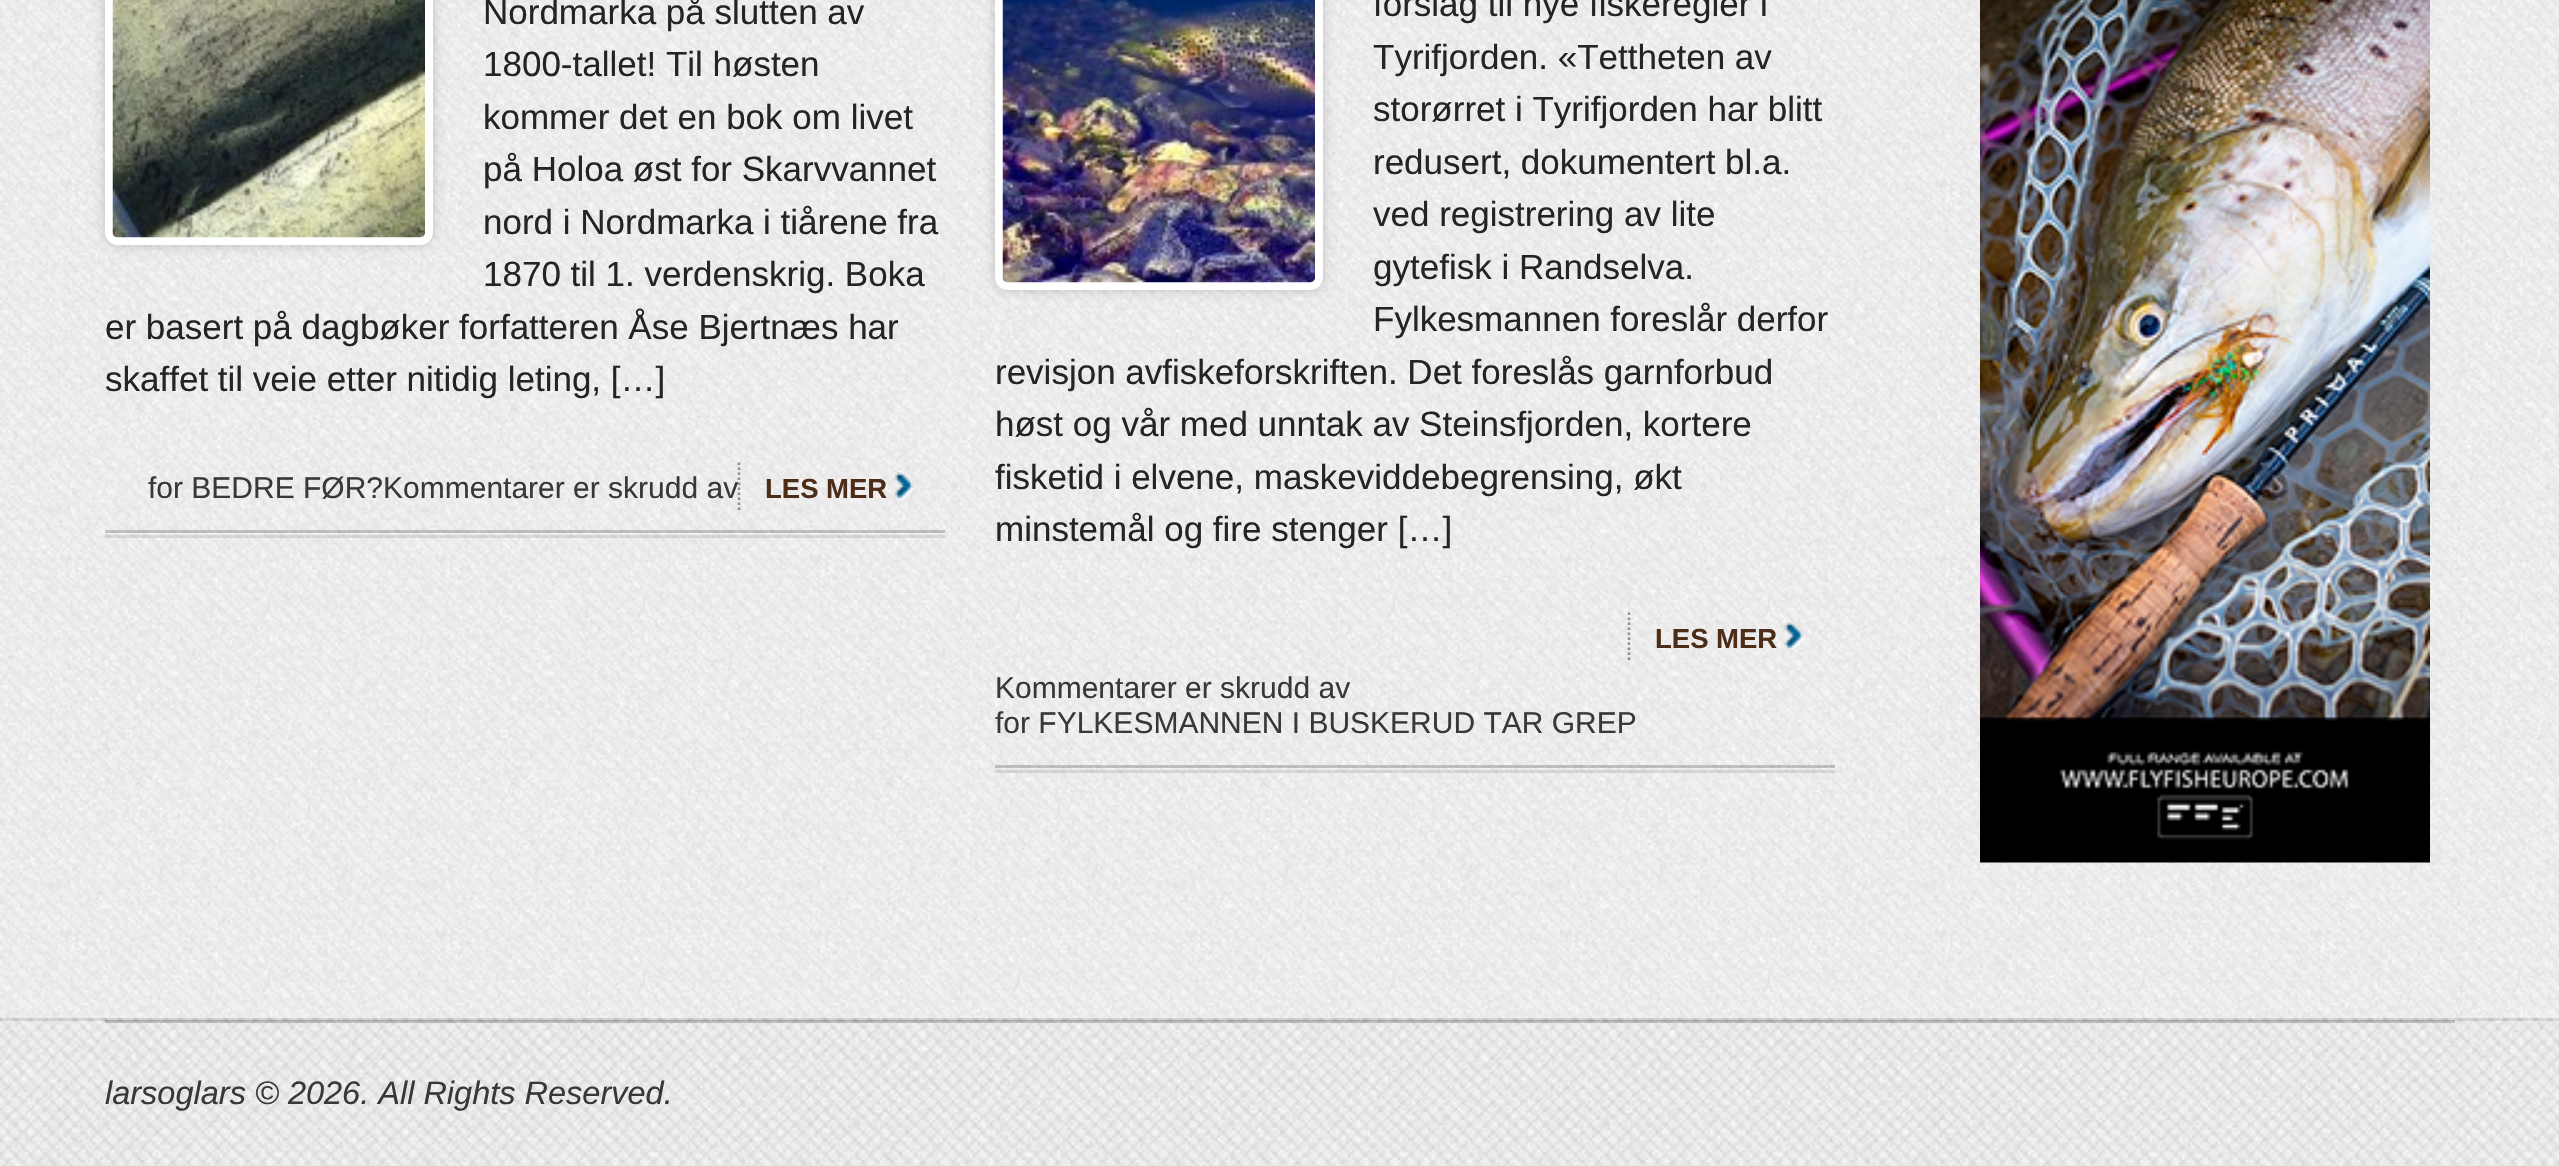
void draw(SkCanvas* canvas) {
    SkPaint paint;
    paint.setAntiAlias(true);
    canvas->clear(0xFFFFFFFF);
    canvas->drawImageRect(SkImages::DeferredFromEncodedData(SkData::MakeFromFileName("img1.png")), SkRect::MakeXYWH(0, 0, 2559, 1166), SkSamplingOptions());
    paint.setColor(0x1A000000);
    canvas->drawRect(SkRect::MakeXYWH(105, 535, 840, 3), paint);
    paint.setColor(0x33000000);
    paint.setMaskFilter(SkMaskFilter::MakeBlur(kNormal_SkBlurStyle, 6));
    canvas->drawRoundRect(SkRect::MakeXYWH(105, -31, 328, 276), 13, 13, paint);
    paint.setMaskFilter(nullptr);
    paint.setStyle(SkPaint::kStroke_Style);
    paint.setStrokeWidth(8);
    paint.setColor(0xFFFFFFFF);
    canvas->drawRoundRect(SkRect::MakeXYWH(109, -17, 320, 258), 9, 9, paint);
    canvas->drawImageRect(SkImages::DeferredFromEncodedData(SkData::MakeFromFileName("img2.png")), SkRect::MakeXYWH(112, 0, 313, 238), SkSamplingOptions());
    SkFont font1(fontMgr->matchFamilyStyle("Liberation Sans", SkFontStyle::Normal()), 35);
    font1.setSubpixel(true);
    paint.setStyle(SkPaint::kFill_Style);
    paint.setColor(0xFF242424);
    canvas->drawString("Nordmarka på slutten av", 483, 24, font1, paint);
    canvas->drawString("1800-tallet! Til høsten", 483, 76, font1, paint);
    canvas->drawString("kommer det en bok om livet", 483, 129, font1, paint);
    canvas->drawString("på Holoa øst for Skarvvannet", 483, 181, font1, paint);
    canvas->drawString("nord i Nordmarka i tiårene fra", 483, 234, font1, paint);
    canvas->drawString("1870 til 1. verdenskrig. Boka", 483, 286, font1, paint);
    canvas->drawString("er basert på dagbøker forfatteren Åse Bjertnæs har", 105, 339, font1, paint);
    canvas->drawString("skaffet til veie etter nitidig leting, […]", 105, 391, font1, paint);
    paint.setColor(0x33000000);
    canvas->drawRect(SkRect::MakeXYWH(105, 530, 840, 3), paint);
    paint.setStyle(SkPaint::kStroke_Style);
    paint.setStrokeWidth(2.5f);
    paint.setColor(0x66000000);
    paint.setPathEffect(SkDashPathEffect::Make({{2.5f, 2.5f}}, 0));
    canvas->drawPath(SkPathBuilder().moveTo(739, 462.5f).lineTo(739, 512.5f).detach(), paint);
    paint.setPathEffect(nullptr);
    SkFont font2(fontMgr->matchFamilyStyle("Liberation Sans", SkFontStyle::Normal()), 30);
    font2.setSubpixel(true);
    paint.setStyle(SkPaint::kFill_Style);
    paint.setColor(0xFF383838);
    canvas->drawString("for BEDRE FØR?Kommentarer er skrudd av", 148, 498, font2, paint);
    SkFont font3(fontMgr->matchFamilyStyle("Liberation Sans", SkFontStyle::Bold()), 27.5f);
    font3.setSubpixel(true);
    paint.setColor(0xFF4D2D18);
    canvas->drawString("LES MER", 765, 498, font3, paint);
    canvas->drawImageRect(SkImages::DeferredFromEncodedData(SkData::MakeFromFileName("img3.png")), SkRect::MakeXYWH(894, 472, 21, 28), SkSamplingOptions());
    paint.setColor(0x1A000000);
    canvas->drawRect(SkRect::MakeXYWH(995, 770, 840, 3), paint);
    paint.setColor(0x33000000);
    paint.setMaskFilter(SkMaskFilter::MakeBlur(kNormal_SkBlurStyle, 6));
    canvas->drawRoundRect(SkRect::MakeXYWH(995, -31, 328, 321), 13, 13, paint);
    paint.setMaskFilter(nullptr);
    paint.setStyle(SkPaint::kStroke_Style);
    paint.setStrokeWidth(8);
    paint.setColor(0xFFFFFFFF);
    canvas->drawRoundRect(SkRect::MakeXYWH(999, -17, 320, 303), 9, 9, paint);
    canvas->drawImageRect(SkImages::DeferredFromEncodedData(SkData::MakeFromFileName("img4.png")), SkRect::MakeXYWH(1002, 0, 313, 283), SkSamplingOptions());
    paint.setStyle(SkPaint::kFill_Style);
    paint.setColor(0xFF242424);
    canvas->drawString("forslag til nye fiskeregler i", 1373, 16, font1, paint);
    canvas->drawString("Tyrifjorden. «Tettheten av", 1373, 69, font1, paint);
    canvas->drawString("storørret i Tyrifjorden har blitt", 1373, 121, font1, paint);
    canvas->drawString("redusert, dokumentert bl.a.", 1373, 174, font1, paint);
    canvas->drawString("ved registrering av lite", 1373, 226, font1, paint);
    canvas->drawString("gytefisk i Randselva.", 1373, 279, font1, paint);
    canvas->drawString("Fylkesmannen foreslår derfor", 1373, 331, font1, paint);
    canvas->drawString("revisjon avfiskeforskriften. Det foreslås garnforbud", 995, 384, font1, paint);
    canvas->drawString("høst og vår med unntak av Steinsfjorden, kortere", 995, 436, font1, paint);
    canvas->drawString("fisketid i elvene, maskeviddebegrensing, økt", 995, 489, font1, paint);
    canvas->drawString("minstemål og fire stenger […]", 995, 541, font1, paint);
    paint.setColor(0x33000000);
    canvas->drawRect(SkRect::MakeXYWH(995, 765, 840, 3), paint);
    paint.setStyle(SkPaint::kStroke_Style);
    paint.setStrokeWidth(2.5f);
    paint.setColor(0x66000000);
    paint.setPathEffect(SkDashPathEffect::Make({{2.5f, 2.5f}}, 0));
    canvas->drawPath(SkPathBuilder().moveTo(1629, 612.5f).lineTo(1629, 662.5f).detach(), paint);
    paint.setPathEffect(nullptr);
    paint.setStyle(SkPaint::kFill_Style);
    paint.setColor(0xFF4D2D18);
    canvas->drawString("LES MER", 1655, 648, font3, paint);
    canvas->drawImageRect(SkImages::DeferredFromEncodedData(SkData::MakeFromFileName("img5.png")), SkRect::MakeXYWH(1784, 622, 21, 28), SkSamplingOptions());
    paint.setColor(0xFF383838);
    canvas->drawString("Kommentarer er skrudd av", 995, 698, font2, paint);
    canvas->drawString("for FYLKESMANNEN I BUSKERUD TAR GREP", 995, 733, font2, paint);
    canvas->drawImageRect(SkImages::DeferredFromEncodedData(SkData::MakeFromFileName("img6.png")), SkRect::MakeXYWH(1980, 0, 450, 863), SkSamplingOptions());
    canvas->drawImageRect(SkImages::DeferredFromEncodedData(SkData::MakeFromFileName("img7.png")), SkRect::MakeXYWH(0, 1018, 2559, 148), SkSamplingOptions());
    paint.setColor(0x1A000000);
    canvas->drawRect(SkRect::MakeXYWH(0, 1018, 2559, 3), paint);
    paint.setColor(0x33000000);
    canvas->drawRect(SkRect::MakeXYWH(105, 1020, 2350, 3), paint);
    SkFont font4(fontMgr->matchFamilyStyle("Liberation Sans", SkFontStyle::Italic()), 32.5f);
    font4.setSubpixel(true);
    paint.setColor(0xFF383838);
    canvas->drawString("larsoglars © 2026. All Rights Reserved.", 105, 1104, font4, paint);
}
